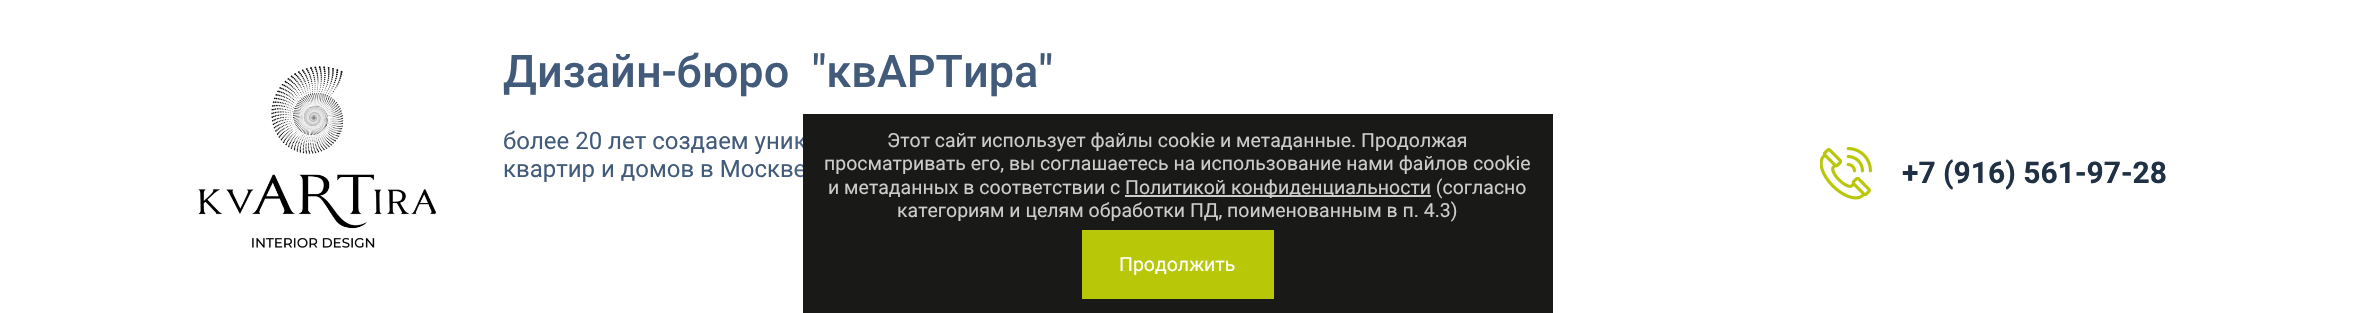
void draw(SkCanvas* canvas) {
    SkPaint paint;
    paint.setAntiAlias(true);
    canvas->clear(0xFFFFFFFF);
    canvas->drawImageRect(SkImages::DeferredFromEncodedData(SkData::MakeFromFileName("img1.png")), SkRect::MakeXYWH(198, 66, 238, 182), SkSamplingOptions());
    SkFont font1(fontMgr->matchFamilyStyle("Roboto", SkFontStyle(500, SkFontStyle::kNormal_Width, SkFontStyle::kUpright_Slant)), 45);
    font1.setSubpixel(true);
    paint.setColor(0xFF435B7B);
    canvas->drawString("Дизайн-бюро  \"квАРТира\"", 503, 87, font1, paint);
    SkFont font2(fontMgr->matchFamilyStyle("Roboto", SkFontStyle::Normal()), 24);
    font2.setSubpixel(true);
    canvas->drawString("более 20 лет создаем уник", 503, 149, font2, paint);
    canvas->drawString("квартир и домов в Москве", 503, 177, font2, paint);
    canvas->drawImageRect(SkImages::DeferredFromEncodedData(SkData::MakeFromFileName("img2.png")), SkRect::MakeXYWH(1820, 147, 52, 53), SkSamplingOptions());
    SkFont font3(fontMgr->matchFamilyStyle("Roboto", SkFontStyle::Bold()), 30);
    font3.setSubpixel(true);
    paint.setColor(0xFF203045);
    canvas->drawString("+7 (916) 561-97-28", 1902, 183, font3, paint);
    paint.setColor(0x3BFFFFFF);
    paint.setMaskFilter(SkMaskFilter::MakeBlur(kNormal_SkBlurStyle, 7.5f));
    canvas->drawRect(SkRect::MakeXYWH(803, 116, 750, 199), paint);
    paint.setMaskFilter(nullptr);
    paint.setColor(0xFF191918);
    canvas->drawRect(SkRect::MakeXYWH(803, 114, 750, 199), paint);
    SkFont font4(fontMgr->matchFamilyStyle("Roboto", SkFontStyle::Normal()), 19.5f);
    font4.setSubpixel(true);
    paint.setColor(0xFFCCCCCC);
    canvas->drawString("Этот сайт использует файлы cookie и метаданные. Продолжая", 887, 147, font4, paint);
    canvas->drawString("просматривать его, вы соглашаетесь на использование нами файлов cookie", 824, 170, font4, paint);
    canvas->drawString("и метаданных в соответствии с", 828, 194, font4, paint);
    canvas->drawRect(SkRect::MakeXYWH(1125, 195, 306, 2), paint);
    canvas->drawString("Политикой конфиденциальности (согласно", 1125, 194, font4, paint);
    canvas->drawString("категориям и целям обработки ПД, поименованным в п. 4.3)", 897, 217, font4, paint);
    paint.setColor(0xFFB9C709);
    canvas->drawRect(SkRect::MakeXYWH(1082, 230, 192, 69), paint);
    paint.setColor(0xFFFFFFFF);
    canvas->drawString("Продолжить", 1119, 271, font4, paint);
}
